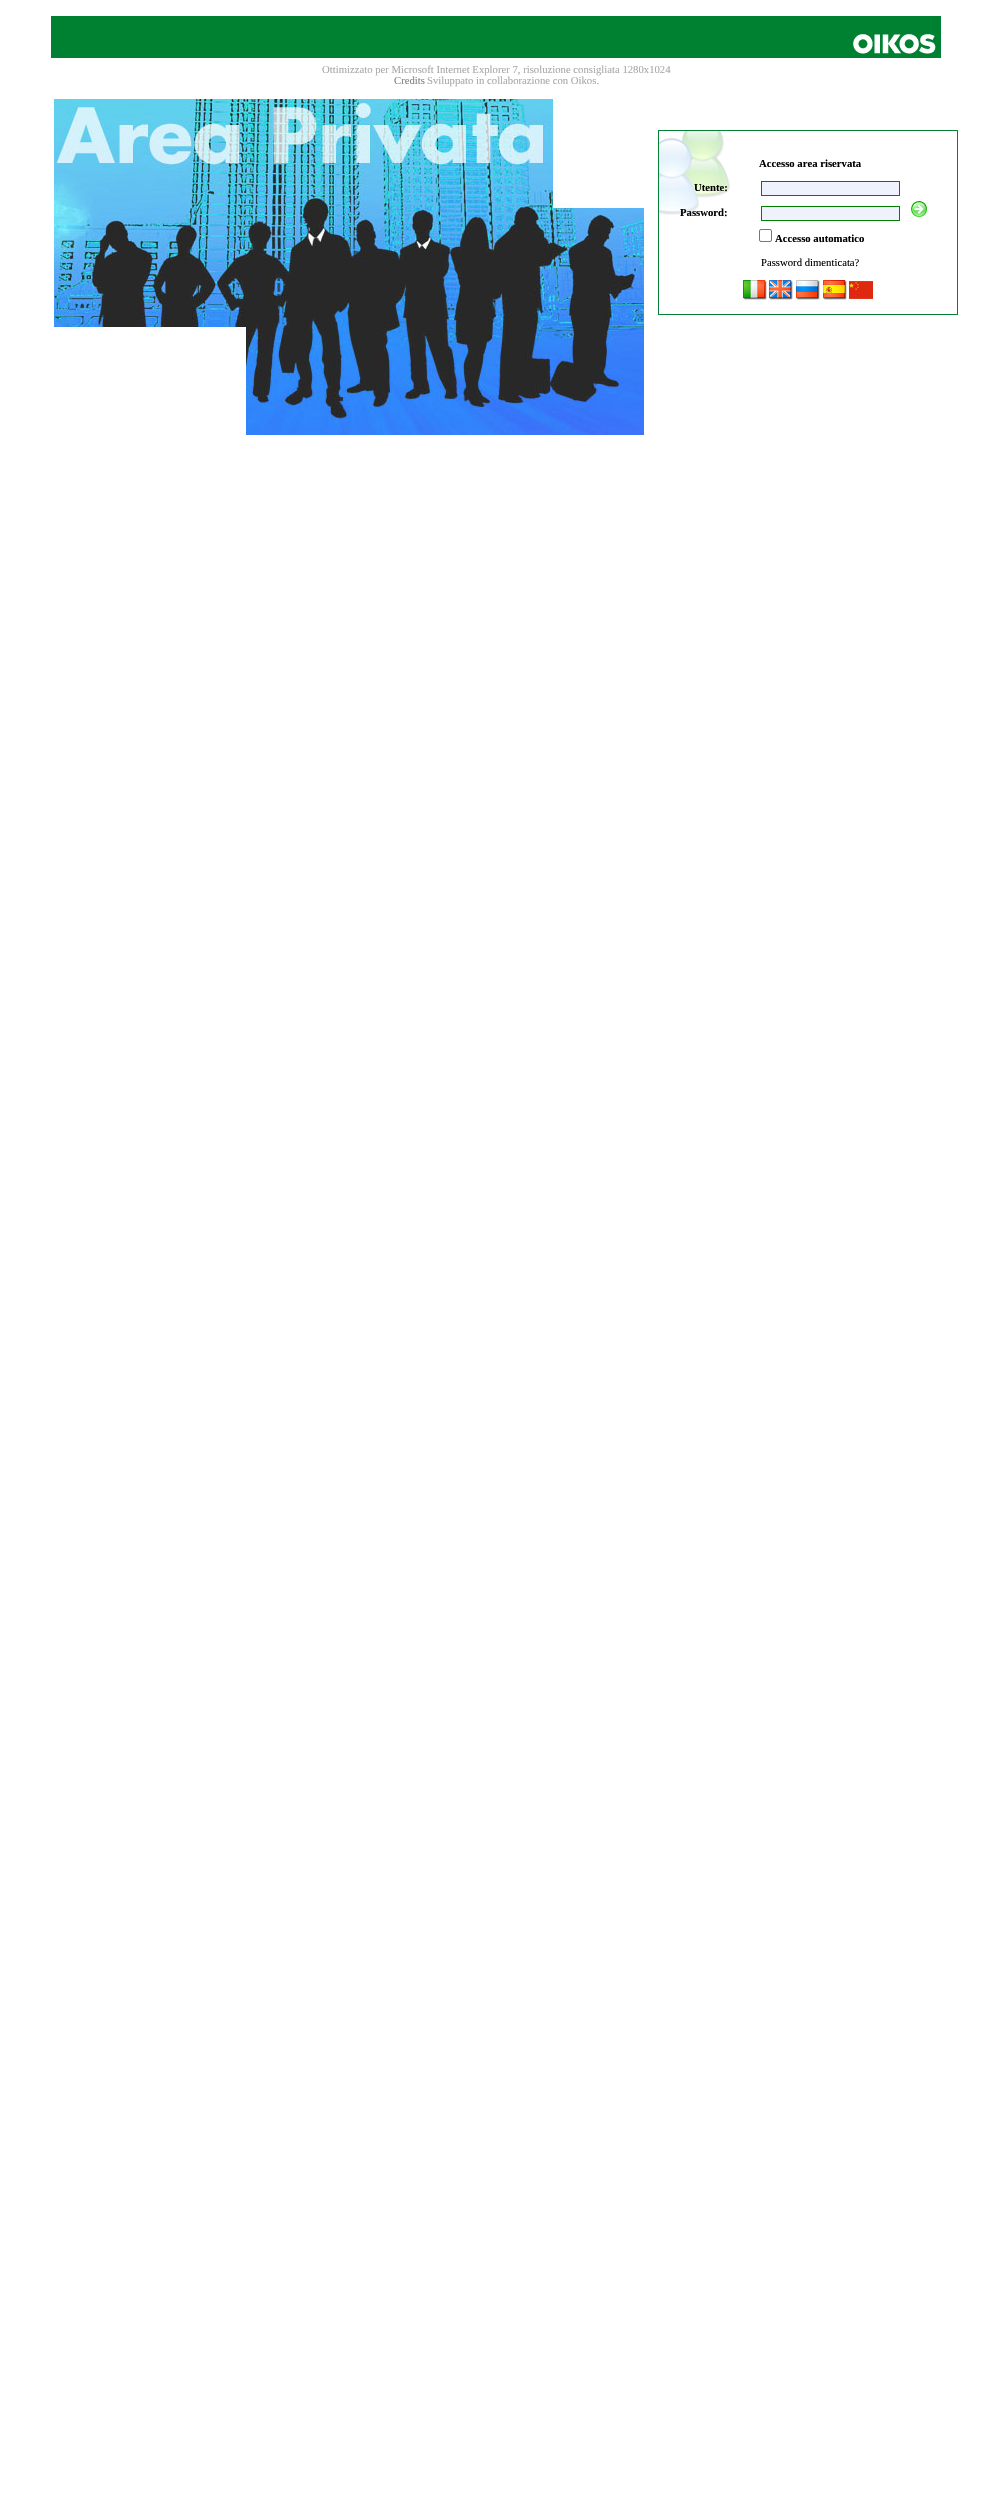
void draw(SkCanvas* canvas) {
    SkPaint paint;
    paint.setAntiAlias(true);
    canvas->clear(0xFFFFFFFF);
    paint.setColor(0xFF008131);
    canvas->drawRect(SkRect::MakeXYWH(51, 16, 890, 42), paint);
    canvas->drawImageRect(SkImages::DeferredFromEncodedData(SkData::MakeFromFileName("img1.png")), SkRect::MakeXYWH(853, 34, 83, 20), SkSamplingOptions());
    SkFont font1(fontMgr->matchFamilyStyle("Liberation Serif", SkFontStyle::Normal()), 10.7f);
    font1.setSubpixel(true);
    paint.setColor(0xFFA9A9A9);
    canvas->drawString("Ottimizzato per Microsoft Internet Explorer 7, risoluzione consigliata 1280x1024", 322, 73, font1, paint);
    paint.setColor(0xFF808080);
    canvas->drawString("Credits", 394, 84, font1, paint);
    paint.setColor(0xFFA9A9A9);
    canvas->drawString("Sviluppato in collaborazione con Oikos.", 427, 84, font1, paint);
    canvas->drawImageRect(SkImages::DeferredFromEncodedData(SkData::MakeFromFileName("img2.png")), SkRect::MakeXYWH(54, 99, 590, 336), SkSamplingOptions());
    canvas->drawImageRect(SkImages::DeferredFromEncodedData(SkData::MakeFromFileName("img3.png")), SkRect::MakeXYWH(659, 131, 71, 84), SkSamplingOptions());
    paint.setStyle(SkPaint::kStroke_Style);
    paint.setStrokeWidth(1);
    paint.setColor(0xFF048135);
    canvas->drawRect(SkRect::MakeXYWH(658.5f, 130.5f, 299, 184), paint);
    SkFont font2(fontMgr->matchFamilyStyle("Liberation Serif", SkFontStyle::Bold()), 10.7f);
    font2.setSubpixel(true);
    paint.setStyle(SkPaint::kFill_Style);
    paint.setColor(0xFF000000);
    canvas->drawString("Accesso area riservata", 759, 167, font2, paint);
    canvas->drawString("Utente:", 694, 191, font2, paint);
    paint.setColor(0xFFEFF2FD);
    canvas->drawRect(SkRect::MakeXYWH(761.5f, 181.5f, 138, 14), paint);
    paint.setStyle(SkPaint::kStroke_Style);
    paint.setColor(0xFF008000);
    canvas->drawRect(SkRect::MakeXYWH(761.5f, 181.5f, 138, 14), paint);
    paint.setStyle(SkPaint::kFill_Style);
    paint.setColor(0xFF000000);
    canvas->drawString("Password:", 680, 216, font2, paint);
    paint.setColor(0xFFEFF2FD);
    canvas->drawRect(SkRect::MakeXYWH(761.5f, 206.5f, 138, 14), paint);
    paint.setStyle(SkPaint::kStroke_Style);
    paint.setColor(0xFF008000);
    canvas->drawRect(SkRect::MakeXYWH(761.5f, 206.5f, 138, 14), paint);
    canvas->drawImageRect(SkImages::DeferredFromEncodedData(SkData::MakeFromFileName("img4.png")), SkRect::MakeXYWH(911, 201, 16, 16), SkSamplingOptions());
    paint.setColor(0xFF767676);
    canvas->drawRoundRect(SkRect::MakeXYWH(759.5f, 229.5f, 12, 12), 1.5f, 1.5f, paint);
    paint.setStyle(SkPaint::kFill_Style);
    paint.setColor(0xFF000000);
    canvas->drawString("Accesso automatico", 775, 242, font2, paint);
    canvas->drawString("Password dimenticata?", 761, 266, font1, paint);
    canvas->drawImageRect(SkImages::DeferredFromEncodedData(SkData::MakeFromFileName("img5.png")), SkRect::MakeXYWH(743, 280, 24, 20), SkSamplingOptions());
    canvas->drawImageRect(SkImages::DeferredFromEncodedData(SkData::MakeFromFileName("img6.png")), SkRect::MakeXYWH(769, 280, 24, 20), SkSamplingOptions());
    canvas->drawImageRect(SkImages::DeferredFromEncodedData(SkData::MakeFromFileName("img7.png")), SkRect::MakeXYWH(796, 280, 24, 20), SkSamplingOptions());
    canvas->drawImageRect(SkImages::DeferredFromEncodedData(SkData::MakeFromFileName("img8.png")), SkRect::MakeXYWH(823, 280, 24, 20), SkSamplingOptions());
    canvas->drawImageRect(SkImages::DeferredFromEncodedData(SkData::MakeFromFileName("img9.png")), SkRect::MakeXYWH(849, 281, 24, 18), SkSamplingOptions());
}
